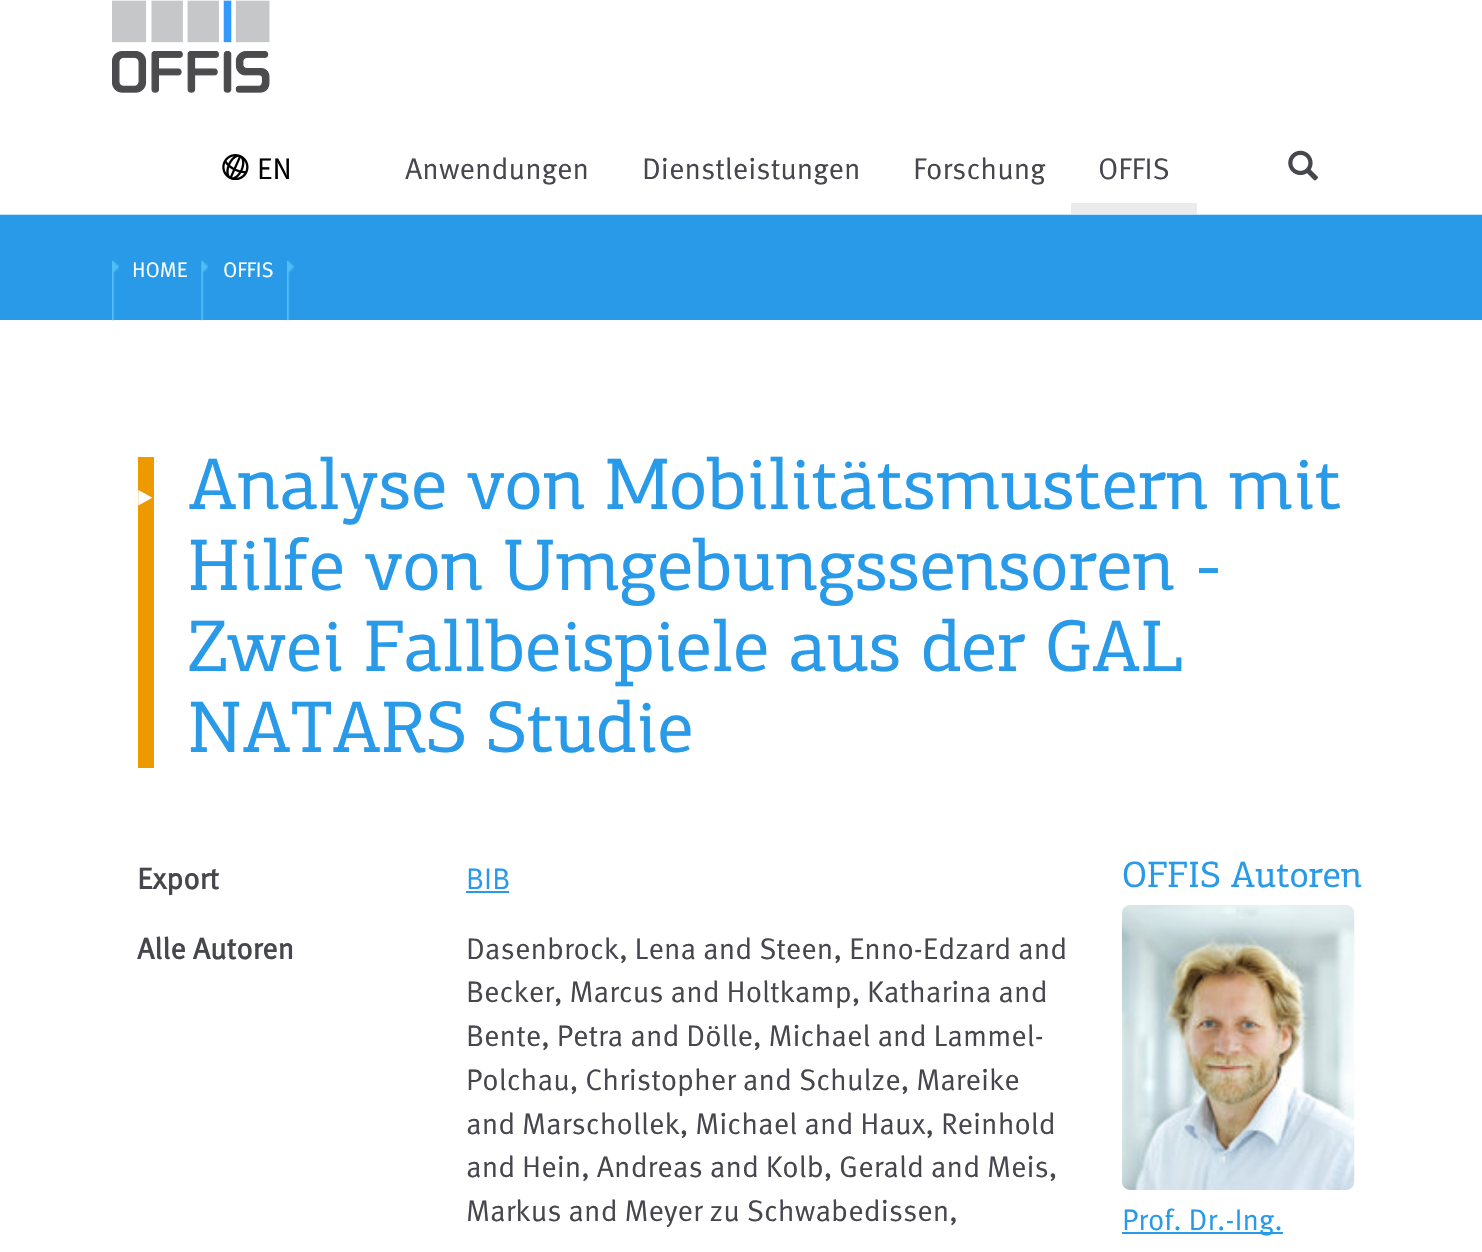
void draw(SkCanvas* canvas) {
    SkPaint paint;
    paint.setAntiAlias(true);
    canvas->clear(0xFFFFFFFF);
    paint.setColor(0xFFBFE6F8);
    canvas->drawRect(SkRect::MakeXYWH(0, 214, 1482, 1), paint);
    canvas->drawImageRect(SkImages::DeferredFromEncodedData(SkData::MakeFromFileName("img1.png")), SkRect::MakeXYWH(112, 0, 158, 93), SkSamplingOptions());
    canvas->drawImageRect(SkImages::DeferredFromEncodedData(SkData::MakeFromFileName("img2.png")), SkRect::MakeXYWH(222, 154, 27, 26), SkSamplingOptions());
    SkFont font1(fontMgr->matchFamilyStyle("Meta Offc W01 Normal", SkFontStyle::Normal()), 29.75f);
    font1.setSubpixel(true);
    paint.setColor(0xFF000000);
    canvas->drawString("EN", 257, 179, font1, paint);
    paint.setColor(0xFF46464D);
    canvas->drawString("Anwendungen", 405, 179, font1, paint);
    canvas->drawString("Dienstleistungen", 642, 179, font1, paint);
    canvas->drawString("Forschung", 913, 179, font1, paint);
    paint.setColor(0xFFEBEBEB);
    canvas->drawRect(SkRect::MakeXYWH(1071, 203, 126, 11), paint);
    paint.setColor(0xFF46464D);
    canvas->drawString("OFFIS", 1098, 179, font1, paint);
    canvas->drawImageRect(SkImages::DeferredFromEncodedData(SkData::MakeFromFileName("img3.png")), SkRect::MakeXYWH(1288, 150, 30, 31), SkSamplingOptions());
    paint.setColor(0xFF289AE7);
    canvas->drawRect(SkRect::MakeXYWH(0, 215, 1482, 105), paint);
    canvas->drawImageRect(SkImages::DeferredFromEncodedData(SkData::MakeFromFileName("img4.png")), SkRect::MakeXYWH(112, 260, 7, 61), SkSamplingOptions());
    SkFont font2(fontMgr->matchFamilyStyle("Meta Offc W01 Normal", SkFontStyle::Normal()), 21);
    font2.setSubpixel(true);
    paint.setColor(0xFFFFFFFF);
    canvas->drawString("HOME", 132, 277, font2, paint);
    canvas->drawImageRect(SkImages::DeferredFromEncodedData(SkData::MakeFromFileName("img5.png")), SkRect::MakeXYWH(201, 260, 7, 61), SkSamplingOptions());
    canvas->drawString("OFFIS", 223, 277, font2, paint);
    canvas->drawImageRect(SkImages::DeferredFromEncodedData(SkData::MakeFromFileName("img4.png")), SkRect::MakeXYWH(287, 260, 7, 61), SkSamplingOptions());
    paint.setColor(0xFFED9900);
    canvas->drawRect(SkRect::MakeXYWH(138, 457, 16, 311), paint);
    canvas->drawImageRect(SkImages::DeferredFromEncodedData(SkData::MakeFromFileName("img6.png")), SkRect::MakeXYWH(138, 490, 14, 16), SkSamplingOptions());
    SkFont font3(fontMgr->matchFamilyStyle("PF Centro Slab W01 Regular", SkFontStyle::Normal()), 73.5f);
    font3.setSubpixel(true);
    paint.setColor(0xFF289AE7);
    canvas->drawString("Analyse von Mobilitätsmustern mit", 188, 509, font3, paint);
    canvas->drawString("Hilfe von Umgebungssensoren -", 188, 590, font3, paint);
    canvas->drawString("Zwei Fallbeispiele aus der GAL", 188, 671, font3, paint);
    canvas->drawString("NATARS Studie", 188, 752, font3, paint);
    SkFont font4(fontMgr->matchFamilyStyle("Meta Offc W01 Normal", SkFontStyle::Bold()), 29.75f);
    font4.setSubpixel(true);
    paint.setColor(0xFF46464D);
    canvas->drawString("Export", 137, 889, font4, paint);
    paint.setColor(0xFF289AE7);
    canvas->drawString("BIB", 466, 889, font1, paint);
    canvas->drawRect(SkRect::MakeXYWH(466, 891, 43, 2), paint);
    paint.setColor(0xFF46464D);
    canvas->drawString("Alle Autoren", 137, 959, font4, paint);
    canvas->drawString("Dasenbrock, Lena and Steen, Enno-Edzard and", 466, 959, font1, paint);
    canvas->drawString("Becker, Marcus and Holtkamp, Katharina and", 466, 1002, font1, paint);
    canvas->drawString("Bente, Petra and Dölle, Michael and Lammel-", 466, 1046, font1, paint);
    canvas->drawString("Polchau, Christopher and Schulze, Mareike", 466, 1090, font1, paint);
    canvas->drawString("and Marschollek, Michael and Haux, Reinhold", 466, 1134, font1, paint);
    canvas->drawString("and Hein, Andreas and Kolb, Gerald and Meis,", 466, 1177, font1, paint);
    canvas->drawString("Markus and Meyer zu Schwabedissen,", 466, 1221, font1, paint);
    SkFont font5(fontMgr->matchFamilyStyle("PF Centro Slab W01 Regular", SkFontStyle::Normal()), 36.75f);
    font5.setSubpixel(true);
    paint.setColor(0xFF289AE7);
    canvas->drawString("OFFIS Autoren", 1122, 887, font5, paint);
    canvas->drawImageRect(SkImages::DeferredFromEncodedData(SkData::MakeFromFileName("img7.png")), SkRect::MakeXYWH(1121, 905, 234, 285), SkSamplingOptions());
    canvas->drawRect(SkRect::MakeXYWH(1122, 1232, 161, 2), paint);
    canvas->drawString("Prof. Dr.-Ing.", 1122, 1230, font1, paint);
}
